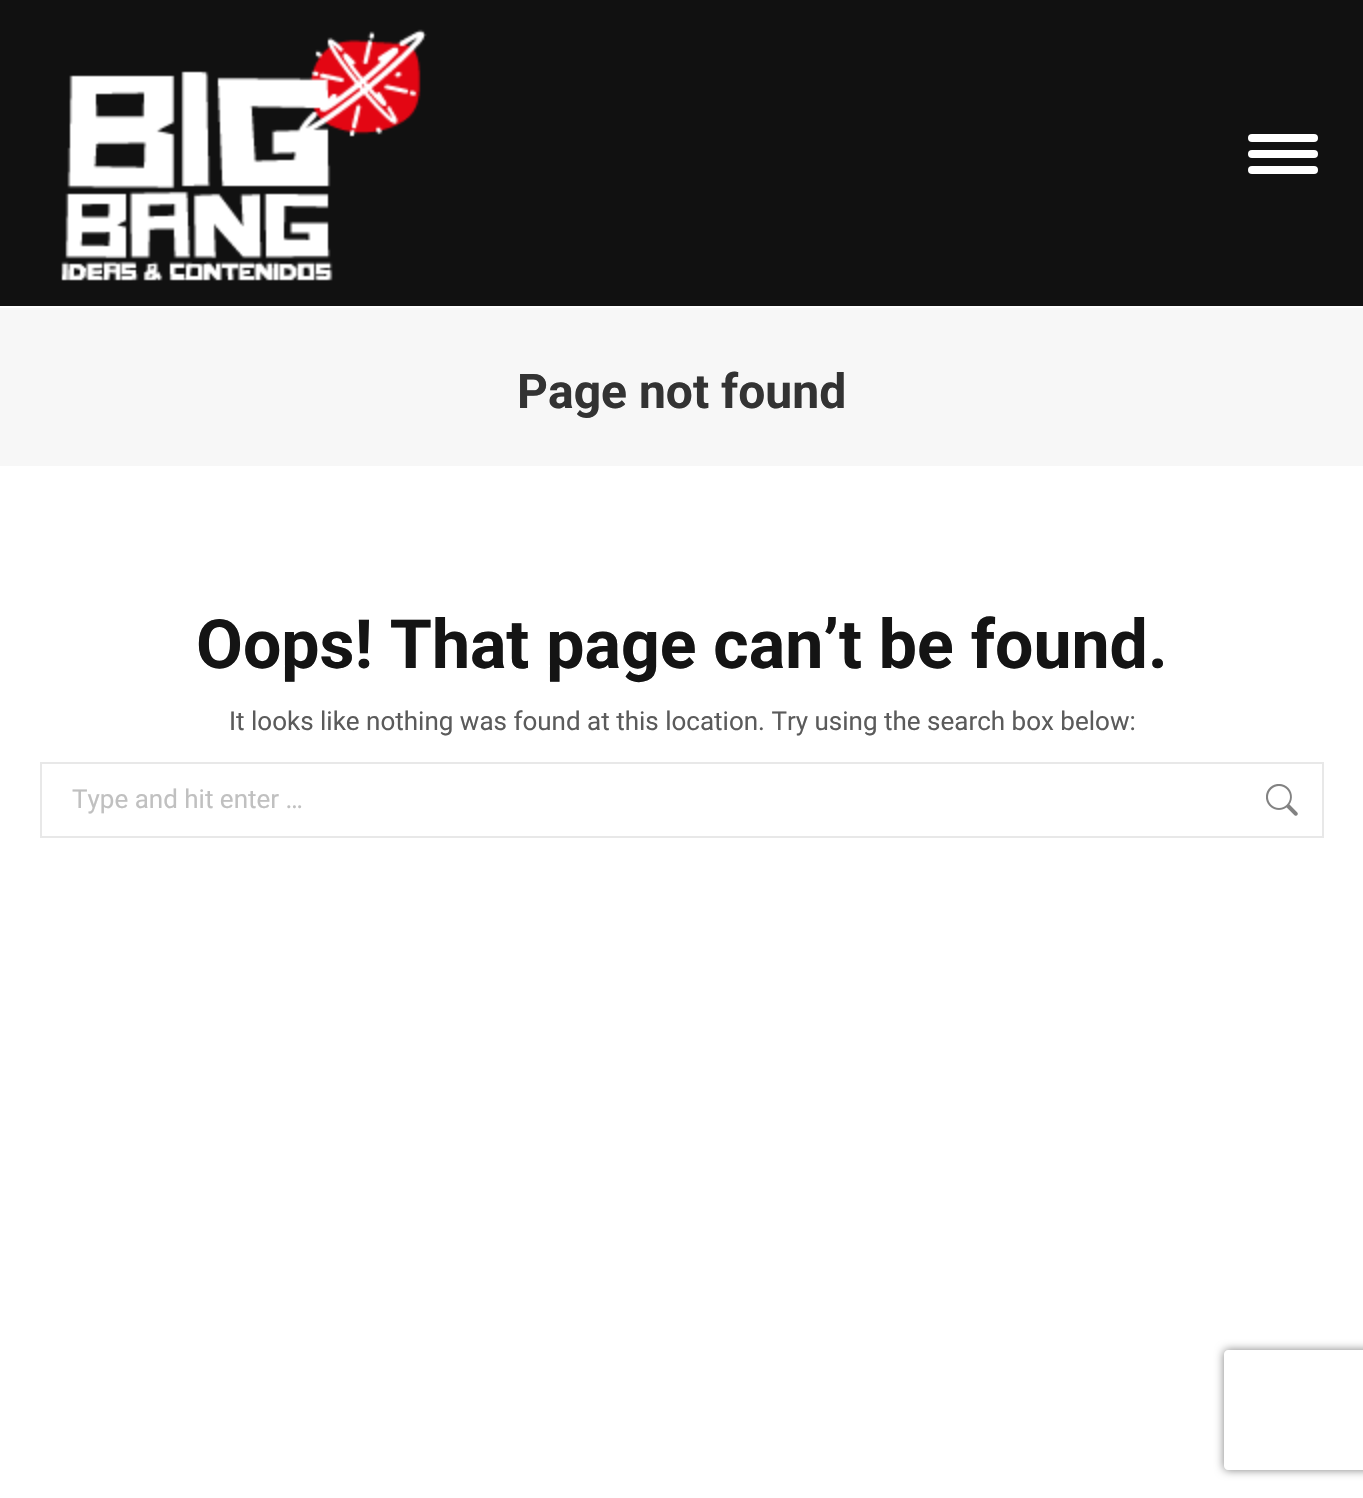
void draw(SkCanvas* canvas) {
    SkPaint paint;
    paint.setAntiAlias(true);
    canvas->clear(0xFFFFFFFF);
    paint.setColor(0xFF111111);
    canvas->drawRect(SkRect::MakeXYWH(0, 0, 1363, 306), paint);
    canvas->drawImageRect(SkImages::DeferredFromEncodedData(SkData::MakeFromFileName("img1.png")), SkRect::MakeXYWH(61, 29, 366, 252), SkSamplingOptions());
    paint.setColor(0xFFFFFFFF);
    canvas->drawRoundRect(SkRect::MakeXYWH(1248, 134, 70, 8), 4, 4, paint);
    canvas->drawRoundRect(SkRect::MakeXYWH(1248, 150, 70, 8), 4, 4, paint);
    canvas->drawRoundRect(SkRect::MakeXYWH(1248, 166, 70, 8), 4, 4, paint);
    paint.setColor(0xFFF7F7F7);
    canvas->drawRect(SkRect::MakeXYWH(0, 308, 1363, 158), paint);
    SkFont font1(fontMgr->matchFamilyStyle("Roboto", SkFontStyle::Bold()), 48);
    font1.setSubpixel(true);
    paint.setColor(0xFF333333);
    canvas->drawString("Page not found", 517, 408, font1, paint);
    SkFont font2(fontMgr->matchFamilyStyle("Roboto", SkFontStyle::Bold()), 68);
    font2.setSubpixel(true);
    paint.setColor(0xFF141414);
    canvas->drawString("Oops! That page can’t be found.", 196, 668, font2, paint);
    SkFont font3(fontMgr->matchFamilyStyle("Roboto", SkFontStyle::Normal()), 26);
    font3.setSubpixel(true);
    paint.setColor(0xFF5B5B5B);
    canvas->drawString("It looks like nothing was found at this location. Try using the search box below:", 229, 730, font3, paint);
    paint.setStyle(SkPaint::kStroke_Style);
    paint.setStrokeWidth(2);
    paint.setColor(0xFFE8E8E8);
    canvas->drawRect(SkRect::MakeXYWH(41, 763, 1282, 74), paint);
    paint.setStyle(SkPaint::kFill_Style);
    paint.setColor(0xFFC0C0C0);
    canvas->drawString("Type and hit enter …", 72, 808, font3, paint);
    canvas->drawImageRect(SkImages::DeferredFromEncodedData(SkData::MakeFromFileName("img2.png")), SkRect::MakeXYWH(1266, 784, 32, 32), SkSamplingOptions());
    canvas->save();
    canvas->clipPath(SkPathBuilder(SkPathFillType::kEvenOdd).moveTo(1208, 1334).lineTo(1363, 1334).lineTo(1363, 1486).lineTo(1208, 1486).close().moveTo(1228, 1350).lineTo(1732, 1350).cubicTo(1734, 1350, 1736, 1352, 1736, 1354).lineTo(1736, 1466).cubicTo(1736, 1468, 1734, 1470, 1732, 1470).lineTo(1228, 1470).cubicTo(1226, 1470, 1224, 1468, 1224, 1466).lineTo(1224, 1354).cubicTo(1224, 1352, 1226, 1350, 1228, 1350).close().detach(), true);
    paint.setColor(0xFF808080);
    paint.setMaskFilter(SkMaskFilter::MakeBlur(kNormal_SkBlurStyle, 5));
    canvas->drawRoundRect(SkRect::MakeXYWH(1224, 1350, 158, 120), 4, 4, paint);
    paint.setMaskFilter(nullptr);
    canvas->restore();
}
